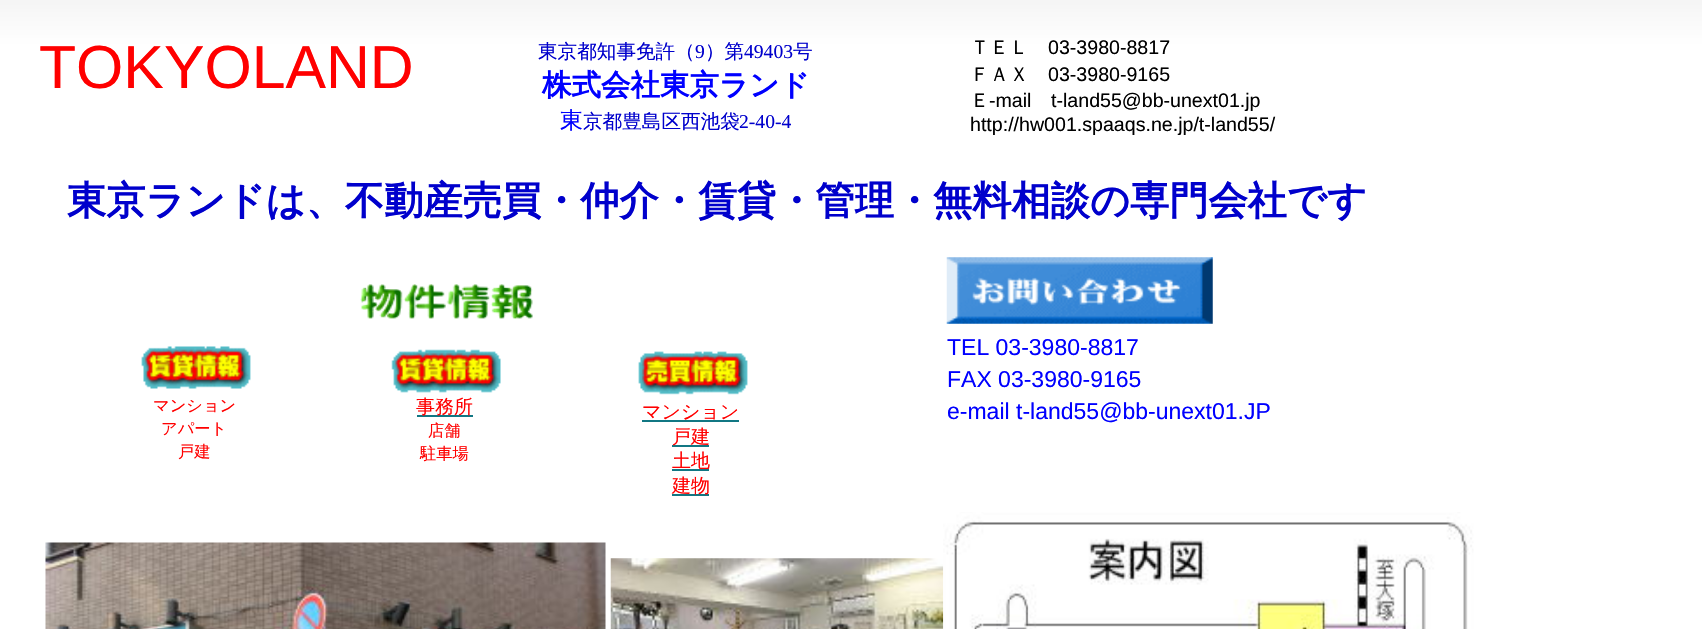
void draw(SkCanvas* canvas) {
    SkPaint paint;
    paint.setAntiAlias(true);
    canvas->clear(0xFFFFFFFF);
    canvas->drawImageRect(SkImages::DeferredFromEncodedData(SkData::MakeFromFileName("img1.png")), SkRect::MakeXYWH(0, 0, 1702, 88), SkSamplingOptions());
    SkFont font1(fontMgr->matchFamilyStyle("Liberation Sans", SkFontStyle::Normal()), 60.75f);
    font1.setSubpixel(true);
    paint.setColor(0xFFFF0000);
    canvas->drawString("TOKYOLAND", 39, 88, font1, paint);
    SkFont font2(fontMgr->matchFamilyStyle("WenQuanYi Zen Hei", SkFontStyle(500, SkFontStyle::kNormal_Width, SkFontStyle::kUpright_Slant)), 19.6f);
    font2.setSubpixel(true);
    paint.setColor(0xFF0000CC);
    canvas->drawString("東京都知事免許（", 538, 58, font2, paint);
    SkFont font3(fontMgr->matchFamilyStyle("Liberation Serif", SkFontStyle::Normal()), 19.6f);
    font3.setSubpixel(true);
    canvas->drawString("9", 695, 58, font3, paint);
    canvas->drawString("）第", 705, 58, font2, paint);
    canvas->drawString("49403", 744, 58, font3, paint);
    canvas->drawString("号", 793, 58, font2, paint);
    SkFont font4(fontMgr->matchFamilyStyle("WenQuanYi Zen Hei", SkFontStyle::Bold()), 29.5f);
    font4.setSubpixel(true);
    paint.setColor(0xFF0000FF);
    canvas->drawString("株式会社東京ランド", 542, 95, font4, paint);
    SkFont font5(fontMgr->matchFamilyStyle("WenQuanYi Zen Hei", SkFontStyle(500, SkFontStyle::kNormal_Width, SkFontStyle::kUpright_Slant)), 23);
    font5.setSubpixel(true);
    canvas->drawString("東", 560, 128, font5, paint);
    paint.setColor(0xFF0000CC);
    canvas->drawString("京都豊島区西池袋", 583, 128, font2, paint);
    canvas->drawString("2-40-4", 739, 128, font3, paint);
    paint.setColor(0xFF000000);
    canvas->drawString("ＴＥＬ", 970, 54, font2, paint);
    SkFont font6(fontMgr->matchFamilyStyle("Liberation Sans", SkFontStyle::Normal()), 19.6f);
    font6.setSubpixel(true);
    canvas->drawString("03-3980-8817", 1048, 54, font6, paint);
    canvas->drawString("ＦＡＸ", 970, 81, font2, paint);
    canvas->drawString("03-3980-9165", 1048, 81, font6, paint);
    canvas->drawString("Ｅ", 970, 107, font2, paint);
    canvas->drawString("-mail", 989, 107, font6, paint);
    canvas->drawString("t-land55@bb-unext01.jp", 1051, 107, font6, paint);
    canvas->drawString("http://hw001.spaaqs.ne.jp/t-land55/", 970, 131, font6, paint);
    SkFont font7(fontMgr->matchFamilyStyle("WenQuanYi Zen Hei", SkFontStyle::Bold()), 39.2f);
    font7.setSubpixel(true);
    paint.setColor(0xFF0000CC);
    canvas->drawString("東京ランドは、不動産売買・仲介・賃貸・管理・無料相談の専門会社です", 67, 214, font7, paint);
    canvas->drawImageRect(SkImages::DeferredFromEncodedData(SkData::MakeFromFileName("img2.png")), SkRect::MakeXYWH(360, 284, 173, 35), SkSamplingOptions());
    canvas->drawImageRect(SkImages::DeferredFromEncodedData(SkData::MakeFromFileName("img3.png")), SkRect::MakeXYWH(946, 257, 267, 67), SkSamplingOptions());
    SkFont font8(fontMgr->matchFamilyStyle("Liberation Sans", SkFontStyle::Normal()), 23);
    font8.setSubpixel(true);
    paint.setColor(0xFF0000FF);
    canvas->drawString("TEL 03-3980-8817", 947, 355, font8, paint);
    canvas->drawString("FAX 03-3980-9165", 947, 387, font8, paint);
    canvas->drawString("e-mail t-land55@bb-unext01.JP", 947, 419, font8, paint);
    canvas->drawImageRect(SkImages::DeferredFromEncodedData(SkData::MakeFromFileName("img4.png")), SkRect::MakeXYWH(141, 346, 110, 43), SkSamplingOptions());
    SkFont font9(fontMgr->matchFamilyStyle("WenQuanYi Zen Hei", SkFontStyle(500, SkFontStyle::kNormal_Width, SkFontStyle::kUpright_Slant)), 16.25f);
    font9.setSubpixel(true);
    paint.setColor(0xFFFF0000);
    canvas->drawString("マンション", 153, 411, font9, paint);
    canvas->drawString("アパート", 161, 434, font9, paint);
    canvas->drawString("戸建", 178, 457, font9, paint);
    canvas->drawImageRect(SkImages::DeferredFromEncodedData(SkData::MakeFromFileName("img5.png")), SkRect::MakeXYWH(391, 349, 110, 44), SkSamplingOptions());
    paint.setColor(0xFF117783);
    canvas->drawRect(SkRect::MakeXYWH(417, 415, 56, 2), paint);
    SkFont font10(fontMgr->matchFamilyStyle("WenQuanYi Zen Hei", SkFontStyle(500, SkFontStyle::kNormal_Width, SkFontStyle::kUpright_Slant)), 19);
    font10.setSubpixel(true);
    paint.setColor(0xFFFF0000);
    canvas->drawString("事務所", 416, 413, font10, paint);
    canvas->drawString("店舗", 428, 436, font9, paint);
    canvas->drawString("駐車場", 420, 459, font9, paint);
    canvas->drawImageRect(SkImages::DeferredFromEncodedData(SkData::MakeFromFileName("img6.png")), SkRect::MakeXYWH(638, 351, 110, 44), SkSamplingOptions());
    canvas->drawString("マンション", 642, 418, font10, paint);
    paint.setColor(0xFF117783);
    canvas->drawRect(SkRect::MakeXYWH(642, 420, 97, 2), paint);
    canvas->drawRect(SkRect::MakeXYWH(672, 445, 37, 2), paint);
    paint.setColor(0xFFFF0000);
    canvas->drawString("戸建", 672, 443, font10, paint);
    canvas->drawString("土地", 672, 467, font10, paint);
    paint.setColor(0xFF117783);
    canvas->drawRect(SkRect::MakeXYWH(672, 469, 37, 2), paint);
    canvas->drawRect(SkRect::MakeXYWH(672, 494, 37, 2), paint);
    paint.setColor(0xFFFF0000);
    canvas->drawString("建物", 672, 492, font10, paint);
    canvas->drawImageRect(SkImages::DeferredFromEncodedData(SkData::MakeFromFileName("img7.png")), SkRect::MakeXYWH(45, 542, 561, 87), SkSamplingOptions());
    canvas->drawImageRect(SkImages::DeferredFromEncodedData(SkData::MakeFromFileName("img8.png")), SkRect::MakeXYWH(610, 558, 334, 71), SkSamplingOptions());
    canvas->drawImageRect(SkImages::DeferredFromEncodedData(SkData::MakeFromFileName("img9.png")), SkRect::MakeXYWH(943, 512, 531, 117), SkSamplingOptions());
}
